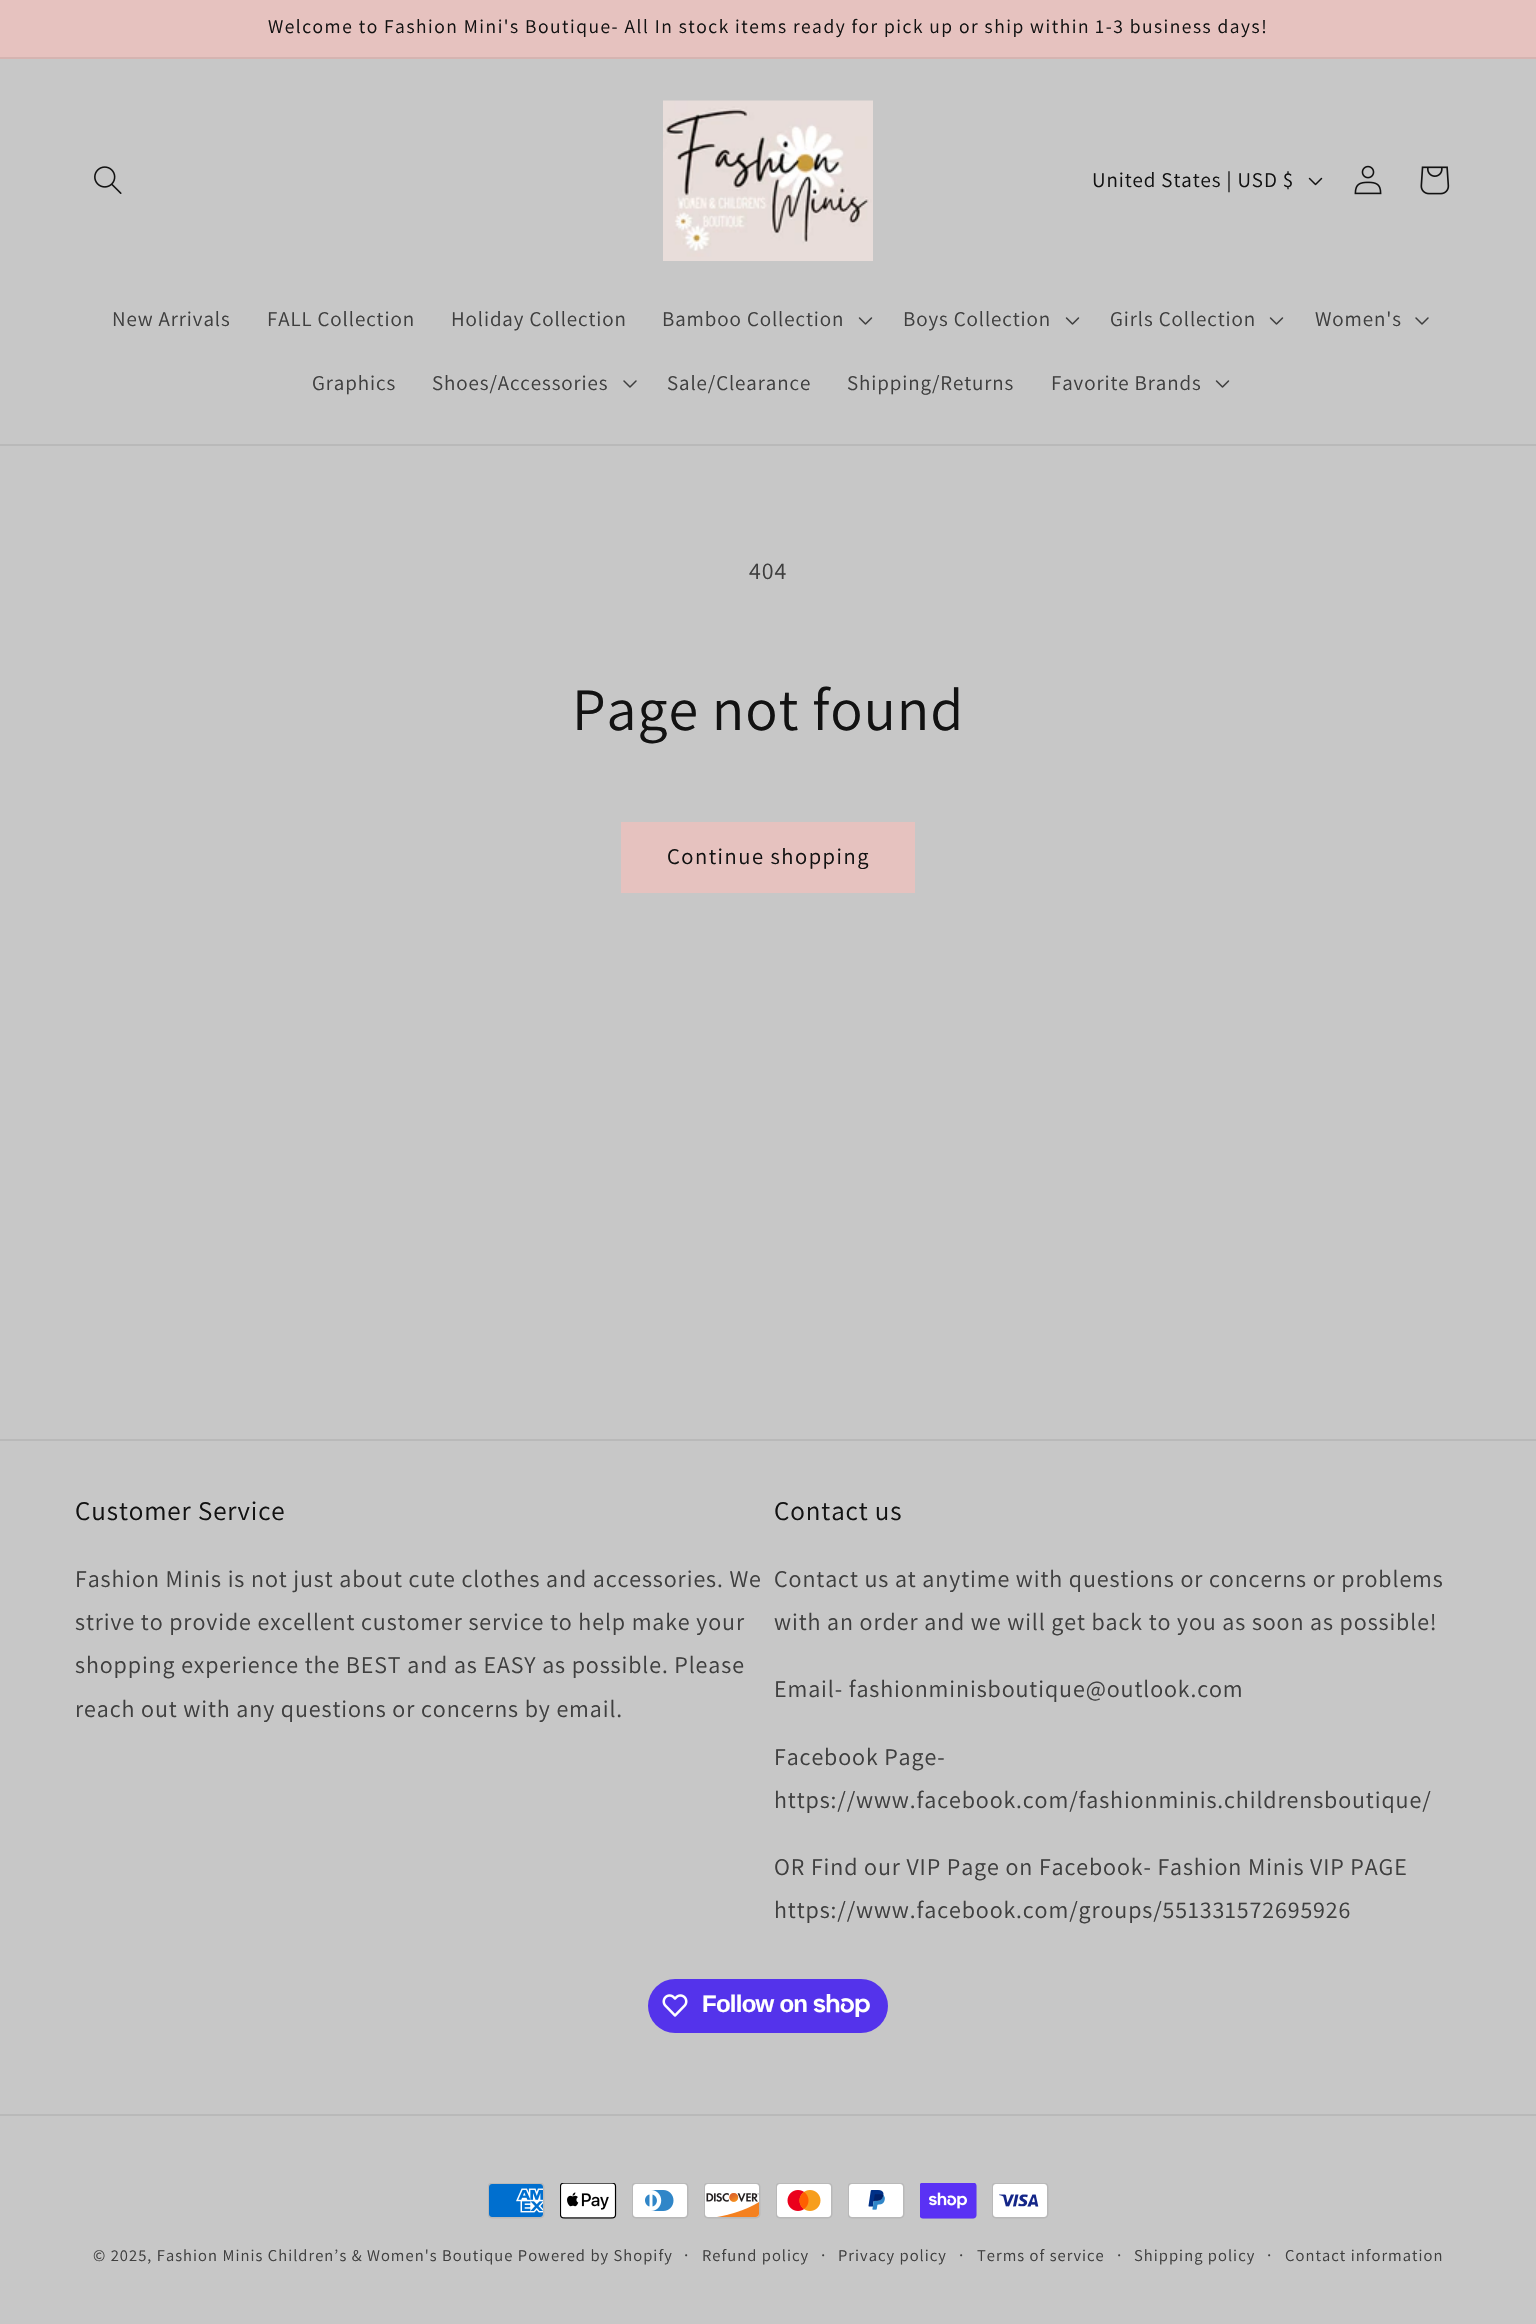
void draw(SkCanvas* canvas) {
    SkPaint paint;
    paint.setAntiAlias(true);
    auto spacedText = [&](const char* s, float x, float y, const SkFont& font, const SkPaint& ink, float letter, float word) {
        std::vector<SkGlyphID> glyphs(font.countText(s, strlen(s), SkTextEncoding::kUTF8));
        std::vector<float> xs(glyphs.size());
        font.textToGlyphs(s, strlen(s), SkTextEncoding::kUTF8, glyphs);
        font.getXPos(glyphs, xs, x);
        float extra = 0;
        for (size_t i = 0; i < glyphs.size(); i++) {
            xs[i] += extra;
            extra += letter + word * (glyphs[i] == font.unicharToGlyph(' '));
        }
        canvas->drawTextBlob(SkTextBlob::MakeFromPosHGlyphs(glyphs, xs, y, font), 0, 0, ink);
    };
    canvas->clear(0xFFC7C7C7);
    paint.setColor(0xFFE6C2BF);
    canvas->drawRect(SkRect::MakeXYWH(0, 0, 1536, 57), paint);
    paint.setColor(0xFFD5B4B1);
    canvas->drawRect(SkRect::MakeXYWH(0, 57, 1536, 2), paint);
    SkFont font1(fontMgr->matchFamilyStyle("Assistant", SkFontStyle::Normal()), 19.5f);
    font1.setSubpixel(true);
    paint.setColor(0xFF121212);
    spacedText("Welcome to Fashion Mini's Boutique- All In stock items ready for pick up or ship within 1-3 business days!", 268, 33, font1, paint, 1.5f, 0);
    paint.setColor(0xFFB9B9B9);
    canvas->drawRect(SkRect::MakeXYWH(0, 444, 1536, 2), paint);
    canvas->drawImageRect(SkImages::DeferredFromEncodedData(SkData::MakeFromFileName("img1.png")), SkRect::MakeXYWH(94, 166, 28, 28), SkSamplingOptions());
    canvas->drawImageRect(SkImages::DeferredFromEncodedData(SkData::MakeFromFileName("img2.png")), SkRect::MakeXYWH(663, 100, 210, 161), SkSamplingOptions());
    SkFont font2(fontMgr->matchFamilyStyle("Assistant", SkFontStyle::Normal()), 21);
    font2.setSubpixel(true);
    paint.setColor(0xFF121212);
    spacedText("United States | USD $", 1092, 187, font2, paint, 0.9f, 0);
    canvas->drawImageRect(SkImages::DeferredFromEncodedData(SkData::MakeFromFileName("img3.png")), SkRect::MakeXYWH(1308, 177, 15, 9), SkSamplingOptions());
    canvas->drawImageRect(SkImages::DeferredFromEncodedData(SkData::MakeFromFileName("img4.png")), SkRect::MakeXYWH(1354, 165, 28, 30), SkSamplingOptions());
    canvas->drawImageRect(SkImages::DeferredFromEncodedData(SkData::MakeFromFileName("img5.png")), SkRect::MakeXYWH(1420, 166, 30, 29), SkSamplingOptions());
    paint.setColor(0xFF3F3F3F);
    spacedText("New Arrivals", 112, 326, font2, paint, 0.9f, 0);
    spacedText("FALL Collection", 267, 326, font2, paint, 0.9f, 0);
    spacedText("Holiday Collection", 451, 326, font2, paint, 0.9f, 0);
    spacedText("Bamboo Collection", 662, 326, font2, paint, 0.9f, 0);
    canvas->drawImageRect(SkImages::DeferredFromEncodedData(SkData::MakeFromFileName("img6.png")), SkRect::MakeXYWH(858, 317, 15, 8), SkSamplingOptions());
    spacedText("Boys Collection", 903, 326, font2, paint, 0.9f, 0);
    canvas->drawImageRect(SkImages::DeferredFromEncodedData(SkData::MakeFromFileName("img6.png")), SkRect::MakeXYWH(1065, 317, 15, 8), SkSamplingOptions());
    spacedText("Girls Collection", 1110, 326, font2, paint, 0.9f, 0);
    canvas->drawImageRect(SkImages::DeferredFromEncodedData(SkData::MakeFromFileName("img6.png")), SkRect::MakeXYWH(1269, 317, 15, 8), SkSamplingOptions());
    spacedText("Women's", 1315, 326, font2, paint, 0.9f, 0);
    canvas->drawImageRect(SkImages::DeferredFromEncodedData(SkData::MakeFromFileName("img7.png")), SkRect::MakeXYWH(1415, 317, 14, 8), SkSamplingOptions());
    spacedText("Graphics", 312, 390, font2, paint, 0.9f, 0);
    spacedText("Shoes/Accessories", 432, 390, font2, paint, 0.9f, 0);
    canvas->drawImageRect(SkImages::DeferredFromEncodedData(SkData::MakeFromFileName("img7.png")), SkRect::MakeXYWH(623, 380, 14, 8), SkSamplingOptions());
    spacedText("Sale/Clearance", 667, 390, font2, paint, 0.9f, 0);
    spacedText("Shipping/Returns", 847, 390, font2, paint, 0.9f, 0);
    spacedText("Favorite Brands", 1051, 390, font2, paint, 0.9f, 0);
    canvas->drawImageRect(SkImages::DeferredFromEncodedData(SkData::MakeFromFileName("img6.png")), SkRect::MakeXYWH(1215, 380, 15, 8), SkSamplingOptions());
    SkFont font3(fontMgr->matchFamilyStyle("Assistant", SkFontStyle::Normal()), 24);
    font3.setSubpixel(true);
    spacedText("404", 749, 579, font3, paint, 0.9f, 0);
    SkFont font4(fontMgr->matchFamilyStyle("Assistant", SkFontStyle::Normal()), 60);
    font4.setSubpixel(true);
    paint.setColor(0xFF121212);
    spacedText("Page not found", 572, 730, font4, paint, 0.9f, 0);
    paint.setColor(0xFFE6C2BF);
    canvas->drawRect(SkRect::MakeXYWH(621, 822, 294, 71), paint);
    SkFont font5(fontMgr->matchFamilyStyle("Assistant", SkFontStyle::Normal()), 22.5f);
    font5.setSubpixel(true);
    paint.setColor(0xFF121212);
    spacedText("Continue shopping", 667, 864, font5, paint, 1.5f, 0);
    paint.setColor(0xFFB9B9B9);
    canvas->drawRect(SkRect::MakeXYWH(0, 1439, 1536, 2), paint);
    SkFont font6(fontMgr->matchFamilyStyle("Assistant", SkFontStyle::Normal()), 27);
    font6.setSubpixel(true);
    paint.setColor(0xFF121212);
    spacedText("Customer Service", 75, 1520, font6, paint, 0.9f, 0);
    paint.setColor(0xFF3F3F3F);
    spacedText("Fashion Minis is not just about cute clothes and accessories. We", 75, 1587, font3, paint, 0.9f, 0);
    spacedText("strive to provide excellent customer service to help make your", 75, 1630, font3, paint, 0.9f, 0);
    spacedText("shopping experience the BEST and as EASY as possible. Please", 75, 1673, font3, paint, 0.9f, 0);
    spacedText("reach out with any questions or concerns by email.", 75, 1717, font3, paint, 0.9f, 0);
    paint.setColor(0xFF121212);
    spacedText("Contact us", 774, 1520, font6, paint, 0.9f, 0);
    paint.setColor(0xFF3F3F3F);
    spacedText("Contact us at anytime with questions or concerns or problems", 774, 1587, font3, paint, 0.9f, 0);
    spacedText("with an order and we will get back to you as soon as possible!", 774, 1630, font3, paint, 0.9f, 0);
    spacedText("Email- fashionminisboutique@outlook.com", 774, 1697, font3, paint, 0.9f, 0);
    spacedText("Facebook Page-", 774, 1765, font3, paint, 0.9f, 0);
    spacedText("https://www.facebook.com/fashionminis.childrensboutique/", 774, 1808, font3, paint, 0.9f, 0);
    spacedText("OR Find our VIP Page on Facebook- Fashion Minis VIP PAGE", 774, 1875, font3, paint, 0.9f, 0);
    spacedText("https://www.facebook.com/groups/551331572695926", 774, 1918, font3, paint, 0.9f, 0);
    paint.setColor(0xFF5433EB);
    canvas->drawRoundRect(SkRect::MakeXYWH(648, 1979, 240, 54), 27, 27, paint);
    canvas->drawImageRect(SkImages::DeferredFromEncodedData(SkData::MakeFromFileName("img8.png")), SkRect::MakeXYWH(662, 1994, 26, 23), SkSamplingOptions());
    SkFont font7(fontMgr->matchFamilyStyle("Liberation Sans", SkFontStyle::Bold()), 24);
    font7.setSubpixel(true);
    paint.setColor(0xFFFFFFFF);
    spacedText("Follow on", 702, 2012, font7, paint, -0.75f, 0);
    canvas->drawImageRect(SkImages::DeferredFromEncodedData(SkData::MakeFromFileName("img9.png")), SkRect::MakeXYWH(813, 1994, 57, 23), SkSamplingOptions());
    paint.setColor(0xFFB9B9B9);
    canvas->drawRect(SkRect::MakeXYWH(0, 2114, 1536, 2), paint);
    canvas->drawImageRect(SkImages::DeferredFromEncodedData(SkData::MakeFromFileName("img10.png")), SkRect::MakeXYWH(488, 2183, 57, 36), SkSamplingOptions());
    canvas->drawImageRect(SkImages::DeferredFromEncodedData(SkData::MakeFromFileName("img11.png")), SkRect::MakeXYWH(560, 2183, 57, 36), SkSamplingOptions());
    canvas->drawImageRect(SkImages::DeferredFromEncodedData(SkData::MakeFromFileName("img12.png")), SkRect::MakeXYWH(632, 2183, 57, 36), SkSamplingOptions());
    canvas->drawImageRect(SkImages::DeferredFromEncodedData(SkData::MakeFromFileName("img13.png")), SkRect::MakeXYWH(704, 2183, 57, 36), SkSamplingOptions());
    canvas->drawImageRect(SkImages::DeferredFromEncodedData(SkData::MakeFromFileName("img14.png")), SkRect::MakeXYWH(776, 2183, 57, 36), SkSamplingOptions());
    canvas->drawImageRect(SkImages::DeferredFromEncodedData(SkData::MakeFromFileName("img15.png")), SkRect::MakeXYWH(848, 2183, 57, 36), SkSamplingOptions());
    canvas->drawImageRect(SkImages::DeferredFromEncodedData(SkData::MakeFromFileName("img16.png")), SkRect::MakeXYWH(920, 2183, 57, 36), SkSamplingOptions());
    canvas->drawImageRect(SkImages::DeferredFromEncodedData(SkData::MakeFromFileName("img17.png")), SkRect::MakeXYWH(992, 2183, 57, 36), SkSamplingOptions());
    SkFont font8(fontMgr->matchFamilyStyle("Assistant", SkFontStyle::Normal()), 16.5f);
    font8.setSubpixel(true);
    paint.setColor(0xFF3F3F3F);
    spacedText("© 2025, Fashion Minis Children’s & Women's Boutique Powered by Shopify", 93, 2261, font8, paint, 1.05f, 0);
    SkFont font9(fontMgr->matchFamilyStyle("Assistant", SkFontStyle::Normal()), 18);
    font9.setSubpixel(true);
    spacedText("·", 684, 2261, font9, paint, 1.05f, 0);
    spacedText("Refund policy", 702, 2261, font8, paint, 1.05f, 0);
    spacedText("·", 821, 2261, font9, paint, 1.05f, 0);
    spacedText("Privacy policy", 838, 2261, font8, paint, 1.05f, 0);
    spacedText("·", 959, 2261, font9, paint, 1.05f, 0);
    spacedText("Terms of service", 977, 2261, font8, paint, 1.05f, 0);
    spacedText("·", 1117, 2261, font9, paint, 1.05f, 0);
    spacedText("Shipping policy", 1134, 2261, font8, paint, 1.05f, 0);
    spacedText("·", 1267, 2261, font9, paint, 1.05f, 0);
    spacedText("Contact information", 1285, 2261, font8, paint, 1.05f, 0);
}
